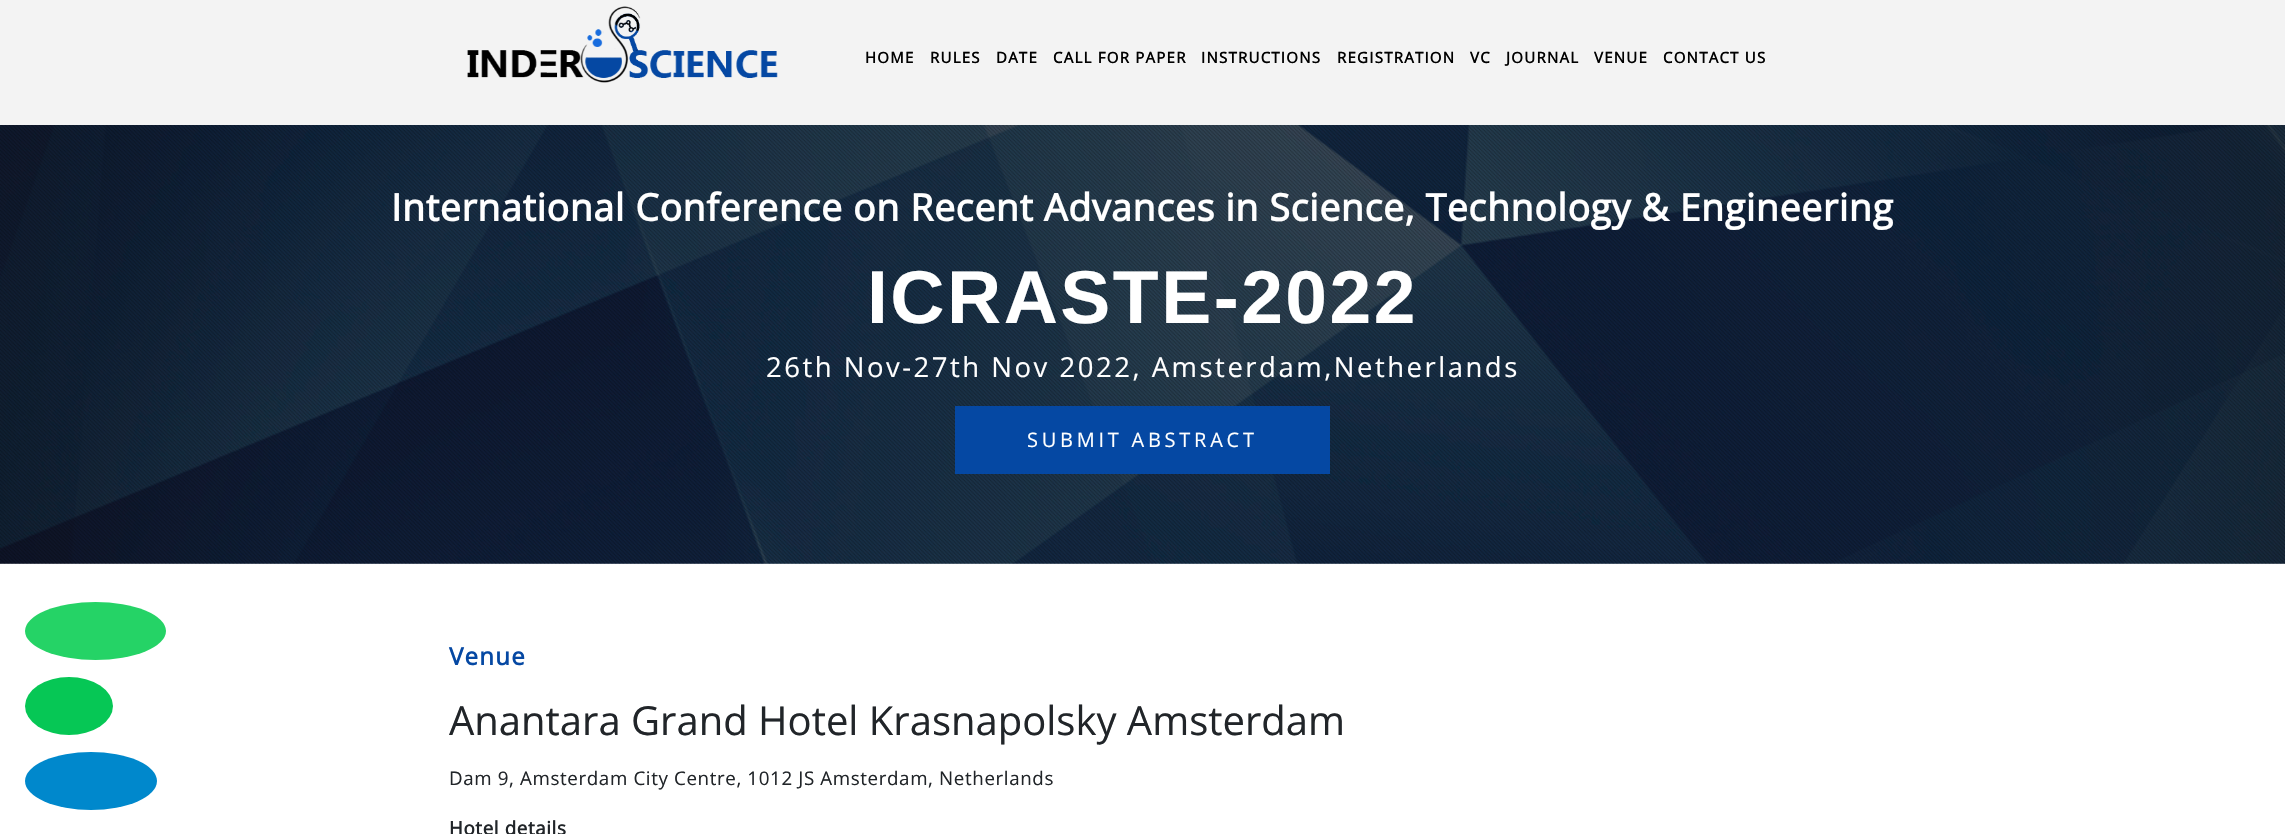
void draw(SkCanvas* canvas) {
    SkPaint paint;
    paint.setAntiAlias(true);
    auto spacedText = [&](const char* s, float x, float y, const SkFont& font, const SkPaint& ink, float letter, float word) {
        std::vector<SkGlyphID> glyphs(font.countText(s, strlen(s), SkTextEncoding::kUTF8));
        std::vector<float> xs(glyphs.size());
        font.textToGlyphs(s, strlen(s), SkTextEncoding::kUTF8, glyphs);
        font.getXPos(glyphs, xs, x);
        float extra = 0;
        for (size_t i = 0; i < glyphs.size(); i++) {
            xs[i] += extra;
            extra += letter + word * (glyphs[i] == font.unicharToGlyph(' '));
        }
        canvas->drawTextBlob(SkTextBlob::MakeFromPosHGlyphs(glyphs, xs, y, font), 0, 0, ink);
    };
    canvas->clear(0xFFFFFFFF);
    paint.setColor(0xFFF3F3F3);
    canvas->drawRect(SkRect::MakeXYWH(0, 0, 2285, 125), paint);
    canvas->drawImageRect(SkImages::DeferredFromEncodedData(SkData::MakeFromFileName("img1.png")), SkRect::MakeXYWH(467, 6, 311, 77), SkSamplingOptions());
    SkFont font1(fontMgr->matchFamilyStyle("Open Sans", SkFontStyle::Bold()), 15);
    font1.setSubpixel(true);
    paint.setColor(0xFF000000);
    spacedText("HOME", 865, 63, font1, paint, 1.25f, 0);
    spacedText("RULES", 930, 63, font1, paint, 1.25f, 0);
    spacedText("DATE", 996, 63, font1, paint, 1.25f, 0);
    spacedText("CALL FOR PAPER", 1053, 63, font1, paint, 1.25f, 0);
    spacedText("INSTRUCTIONS", 1201, 63, font1, paint, 1.25f, 0);
    spacedText("REGISTRATION", 1337, 63, font1, paint, 1.25f, 0);
    spacedText("VC", 1470, 63, font1, paint, 1.25f, 0);
    spacedText("JOURNAL", 1506, 63, font1, paint, 1.25f, 0);
    spacedText("VENUE", 1594, 63, font1, paint, 1.25f, 0);
    spacedText("CONTACT US", 1663, 63, font1, paint, 1.25f, 0);
    canvas->drawImageRect(SkImages::DeferredFromEncodedData(SkData::MakeFromFileName("img2.png")), SkRect::MakeXYWH(0, 125, 2285, 439), SkSamplingOptions());
    canvas->drawImageRect(SkImages::DeferredFromEncodedData(SkData::MakeFromFileName("img3.png")), SkRect::MakeXYWH(0, 125, 2285, 439), SkSamplingOptions());
    SkFont font2(fontMgr->matchFamilyStyle("Open Sans", SkFontStyle::Bold()), 37.5f);
    font2.setSubpixel(true);
    paint.setColor(0xFFFFFFFF);
    spacedText("International Conference on Recent Advances in Science, Technology & Engineering", 391, 221, font2, paint, 0.62f, 0);
    SkFont font3(fontMgr->matchFamilyStyle("Liberation Sans", SkFontStyle::Bold()), 75);
    font3.setSubpixel(true);
    spacedText("ICRASTE-2022", 867, 323, font3, paint, 2.5f, 0);
    SkFont font4(fontMgr->matchFamilyStyle("Open Sans", SkFontStyle::Normal()), 27.5f);
    font4.setSubpixel(true);
    spacedText("26th Nov-27th Nov 2022, Amsterdam,Netherlands", 766, 377, font4, paint, 2.5f, 0);
    paint.setColor(0xFF0548A3);
    canvas->drawRect(SkRect::MakeXYWH(955, 406, 375, 68), paint);
    SkFont font5(fontMgr->matchFamilyStyle("Open Sans", SkFontStyle::Normal()), 20);
    font5.setSubpixel(true);
    paint.setColor(0xFFFFFFFF);
    spacedText("SUBMIT ABSTRACT", 1027, 447, font5, paint, 3.75f, 0);
    paint.setColor(0xFF25D366);
    canvas->drawOval(SkRect::MakeXYWH(25, 602, 141, 58), paint);
    paint.setColor(0xFF06C755);
    canvas->drawOval(SkRect::MakeXYWH(25, 677, 88, 58), paint);
    SkFont font6(fontMgr->matchFamilyStyle("Open Sans", SkFontStyle::Bold()), 24);
    font6.setSubpixel(true);
    paint.setColor(0xFF0548A3);
    spacedText("Venue", 449, 665, font6, paint, 1.25f, 0);
    SkFont font7(fontMgr->matchFamilyStyle("Open Sans", SkFontStyle::Normal()), 40);
    font7.setSubpixel(true);
    paint.setColor(0xFF212529);
    canvas->drawString("Anantara Grand Hotel Krasnapolsky Amsterdam", 449, 735, font7, paint);
    SkFont font8(fontMgr->matchFamilyStyle("Open Sans", SkFontStyle::Normal()), 18.75f);
    font8.setSubpixel(true);
    spacedText("Dam 9, Amsterdam City Centre, 1012 JS Amsterdam, Netherlands", 449, 785, font8, paint, 0.62f, 0);
    SkFont font9(fontMgr->matchFamilyStyle("Open Sans", SkFontStyle::Bold()), 18.75f);
    font9.setSubpixel(true);
    spacedText("Hotel details", 449, 835, font9, paint, 0.62f, 0);
    paint.setColor(0xFF0088CC);
    canvas->drawOval(SkRect::MakeXYWH(25, 752, 132, 58), paint);
}
